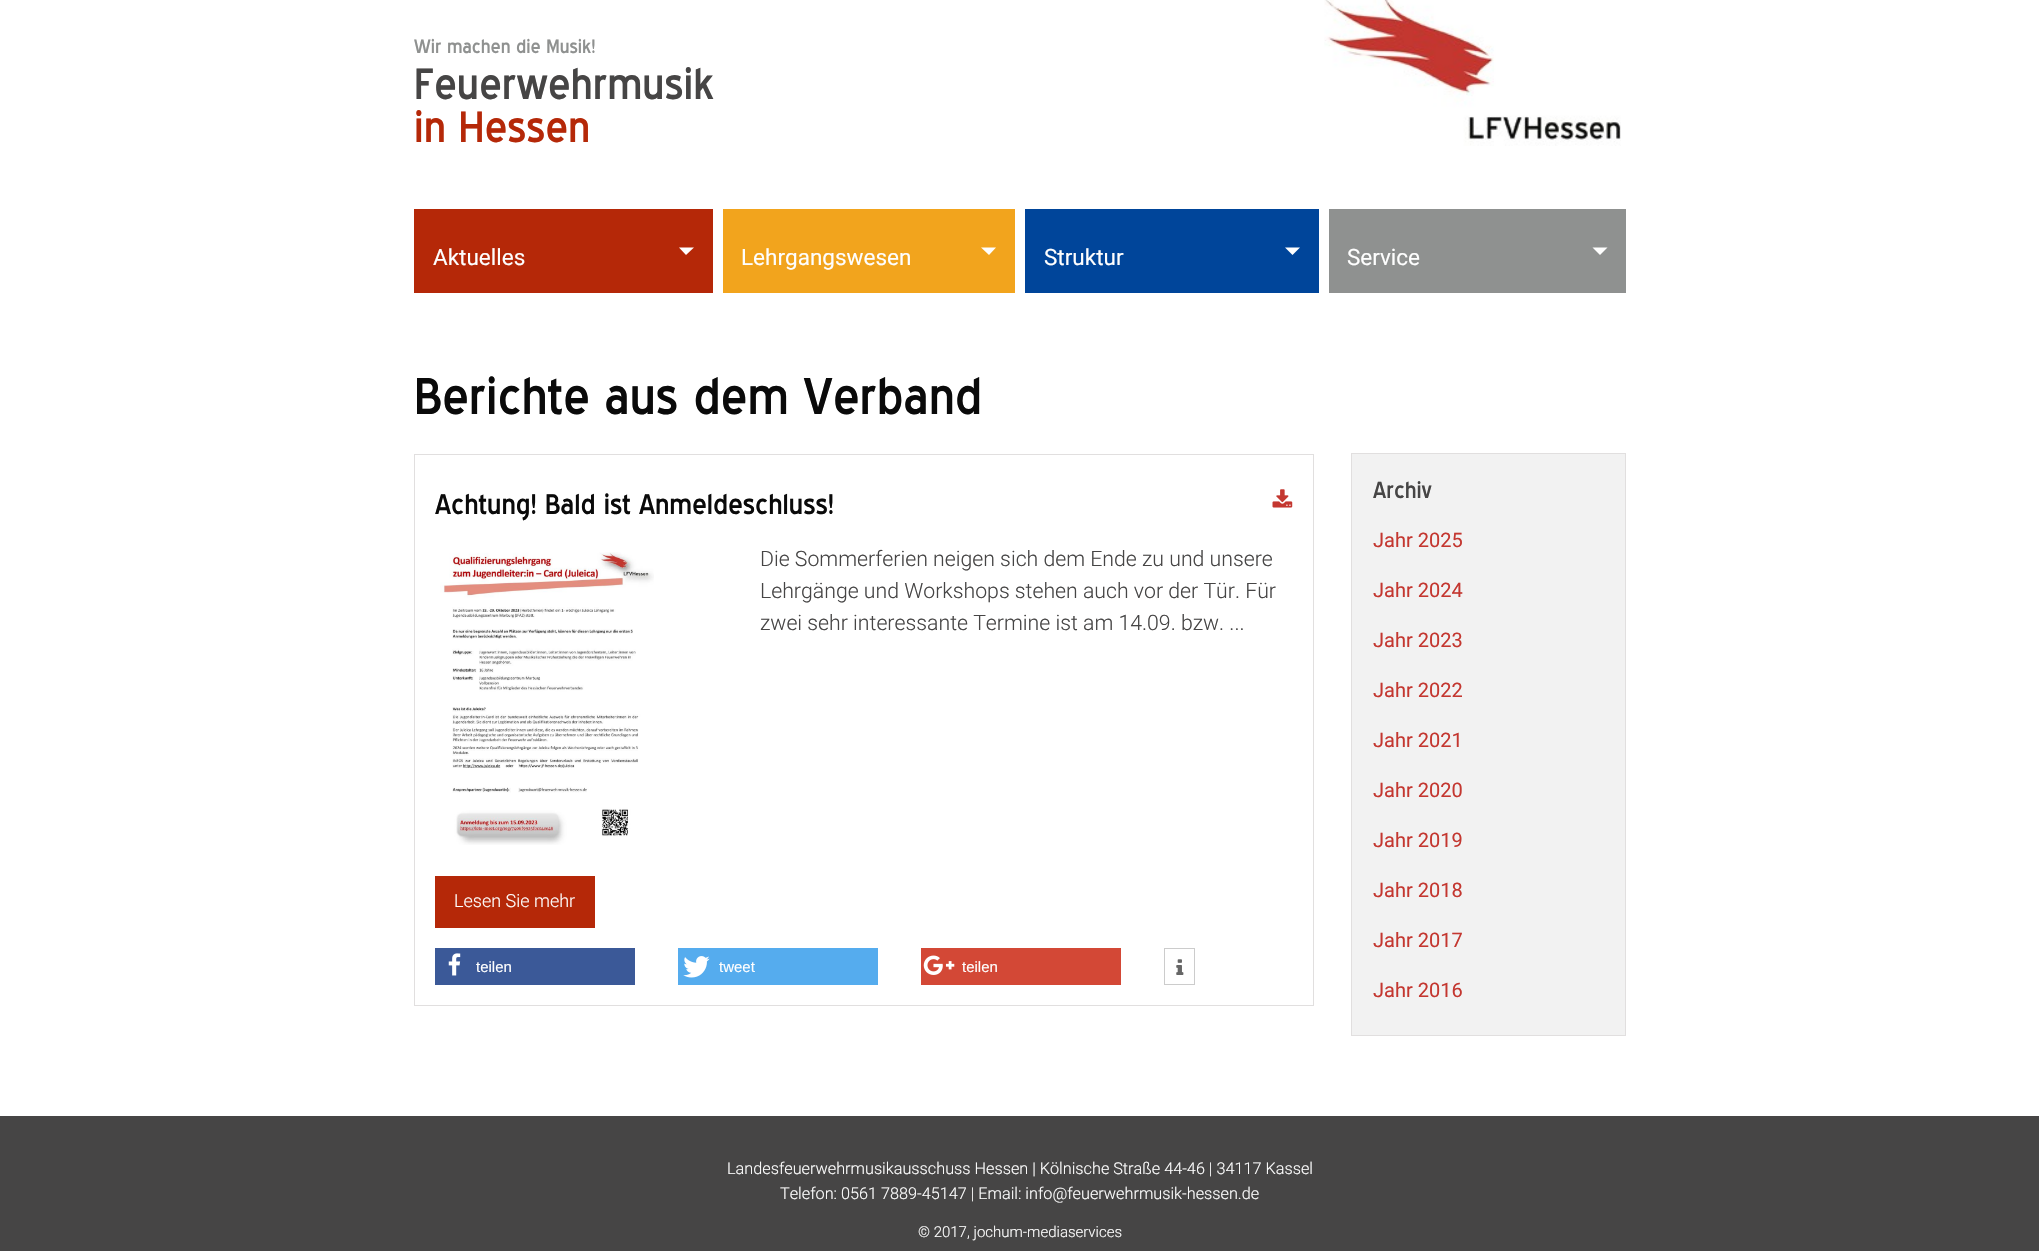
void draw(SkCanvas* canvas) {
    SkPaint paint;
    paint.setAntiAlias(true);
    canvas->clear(0xFFFFFFFF);
    SkFont font1(fontMgr->matchFamilyStyle("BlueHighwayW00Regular", SkFontStyle::Normal()), 18.75f);
    font1.setSubpixel(true);
    paint.setColor(0xFF8F9190);
    canvas->drawString("Wir machen die Musik!", 414, 53, font1, paint);
    SkFont font2(fontMgr->matchFamilyStyle("BlueHighwayW00Regular", SkFontStyle::Normal()), 42.5f);
    font2.setSubpixel(true);
    paint.setColor(0xFF464545);
    canvas->drawString("Feuerwehrmusik", 414, 99, font2, paint);
    paint.setColor(0xFFB52808);
    canvas->drawString("in Hessen", 414, 142, font2, paint);
    canvas->drawImageRect(SkImages::DeferredFromEncodedData(SkData::MakeFromFileName("img1.png")), SkRect::MakeXYWH(1324, 0, 297, 146), SkSamplingOptions());
    canvas->drawRect(SkRect::MakeXYWH(414, 209, 299, 84), paint);
    SkFont font3(fontMgr->matchFamilyStyle("Roboto", SkFontStyle::Normal()), 22.5f);
    font3.setSubpixel(true);
    paint.setColor(0xFFFEFEFE);
    canvas->drawString("Aktuelles", 433, 265, font3, paint);
    paint.setColor(0xFFFFFFFF);
    canvas->drawPath(SkPathBuilder().moveTo(679, 247.5f).lineTo(694, 247.5f).lineTo(686, 255).close().detach(), paint);
    paint.setColor(0xFFF2A41D);
    canvas->drawRect(SkRect::MakeXYWH(723, 209, 292, 84), paint);
    paint.setColor(0xFFFEFEFE);
    canvas->drawString("Lehrgangswesen", 741, 265, font3, paint);
    paint.setColor(0xFFFFFFFF);
    canvas->drawPath(SkPathBuilder().moveTo(981, 247.5f).lineTo(996, 247.5f).lineTo(989, 255).close().detach(), paint);
    paint.setColor(0xFF00459A);
    canvas->drawRect(SkRect::MakeXYWH(1025, 209, 294, 84), paint);
    paint.setColor(0xFFFEFEFE);
    canvas->drawString("Struktur", 1044, 265, font3, paint);
    paint.setColor(0xFFFFFFFF);
    canvas->drawPath(SkPathBuilder().moveTo(1285, 247.5f).lineTo(1300, 247.5f).lineTo(1292.5f, 255).close().detach(), paint);
    paint.setColor(0xFF8F9190);
    canvas->drawRect(SkRect::MakeXYWH(1329, 209, 297, 84), paint);
    paint.setColor(0xFFFEFEFE);
    canvas->drawString("Service", 1347, 265, font3, paint);
    paint.setColor(0xFFFFFFFF);
    canvas->drawPath(SkPathBuilder().moveTo(1592.5f, 247.5f).lineTo(1607.5f, 247.5f).lineTo(1600, 255).close().detach(), paint);
    SkFont font4(fontMgr->matchFamilyStyle("BlueHighwayW00Regular", SkFontStyle::Normal()), 50);
    font4.setSubpixel(true);
    paint.setColor(0xFF0A0A0A);
    canvas->drawString("Berichte aus dem Verband", 414, 414, font4, paint);
    paint.setStyle(SkPaint::kStroke_Style);
    paint.setStrokeWidth(1);
    paint.setColor(0xFFE1DFDF);
    canvas->drawRect(SkRect::MakeXYWH(414.5f, 454.5f, 899, 551), paint);
    SkFont font5(fontMgr->matchFamilyStyle("BlueHighwayW00Regular", SkFontStyle::Normal()), 27.5f);
    font5.setSubpixel(true);
    paint.setStyle(SkPaint::kFill_Style);
    paint.setColor(0xFF0A0A0A);
    canvas->drawString("Achtung! Bald ist Anmeldeschluss!", 435, 514, font5, paint);
    canvas->drawImageRect(SkImages::DeferredFromEncodedData(SkData::MakeFromFileName("img2.png")), SkRect::MakeXYWH(1272, 489, 21, 19), SkSamplingOptions());
    canvas->drawImageRect(SkImages::DeferredFromEncodedData(SkData::MakeFromFileName("img3.png")), SkRect::MakeXYWH(440, 552, 214, 293), SkSamplingOptions());
    SkFont font6(fontMgr->matchFamilyStyle("Roboto", SkFontStyle(300, SkFontStyle::kNormal_Width, SkFontStyle::kUpright_Slant)), 21.25f);
    font6.setSubpixel(true);
    paint.setColor(0xFF464545);
    canvas->drawString("Die Sommerferien neigen sich dem Ende zu und unsere", 760, 566, font6, paint);
    canvas->drawString("Lehrgänge und Workshops stehen auch vor der Tür. Für", 760, 598, font6, paint);
    canvas->drawString("zwei sehr interessante Termine ist am 14.09. bzw. ...", 760, 630, font6, paint);
    paint.setColor(0xFFB52808);
    canvas->drawRect(SkRect::MakeXYWH(435, 876, 160, 52), paint);
    SkFont font7(fontMgr->matchFamilyStyle("Roboto", SkFontStyle(300, SkFontStyle::kNormal_Width, SkFontStyle::kUpright_Slant)), 18);
    font7.setSubpixel(true);
    paint.setColor(0xFFFEFEFE);
    canvas->drawString("Lesen Sie mehr", 454, 907, font7, paint);
    paint.setColor(0xFF3B5998);
    canvas->drawRect(SkRect::MakeXYWH(435, 948, 200, 37), paint);
    canvas->drawImageRect(SkImages::DeferredFromEncodedData(SkData::MakeFromFileName("img4.png")), SkRect::MakeXYWH(448, 953, 13, 23), SkSamplingOptions());
    SkFont font8(fontMgr->matchFamilyStyle("Liberation Sans", SkFontStyle::Normal()), 15);
    font8.setSubpixel(true);
    paint.setColor(0xFFFEFEFE);
    canvas->drawString("teilen", 476, 972, font8, paint);
    paint.setColor(0xFF55ACEE);
    canvas->drawRect(SkRect::MakeXYWH(678, 948, 200, 37), paint);
    canvas->drawImageRect(SkImages::DeferredFromEncodedData(SkData::MakeFromFileName("img5.png")), SkRect::MakeXYWH(683, 956, 27, 22), SkSamplingOptions());
    paint.setColor(0xFFFEFEFE);
    canvas->drawString("tweet", 719, 972, font8, paint);
    paint.setColor(0xFFD34836);
    canvas->drawRect(SkRect::MakeXYWH(921, 948, 200, 37), paint);
    canvas->drawImageRect(SkImages::DeferredFromEncodedData(SkData::MakeFromFileName("img6.png")), SkRect::MakeXYWH(923, 955, 32, 20), SkSamplingOptions());
    paint.setColor(0xFFFEFEFE);
    canvas->drawString("teilen", 962, 972, font8, paint);
    paint.setStyle(SkPaint::kStroke_Style);
    paint.setColor(0xFFCCCCCC);
    canvas->drawRect(SkRect::MakeXYWH(1164.5f, 948.5f, 30, 36), paint);
    canvas->drawImageRect(SkImages::DeferredFromEncodedData(SkData::MakeFromFileName("img7.png")), SkRect::MakeXYWH(1176, 959, 8, 16), SkSamplingOptions());
    paint.setStyle(SkPaint::kFill_Style);
    paint.setColor(0xFFF2F2F2);
    canvas->drawRect(SkRect::MakeXYWH(1351.5f, 453.5f, 274, 582), paint);
    paint.setStyle(SkPaint::kStroke_Style);
    paint.setColor(0xFFE1DFDF);
    canvas->drawRect(SkRect::MakeXYWH(1351.5f, 453.5f, 274, 582), paint);
    SkFont font9(fontMgr->matchFamilyStyle("BlueHighwayW00Regular", SkFontStyle::Normal()), 22.5f);
    font9.setSubpixel(true);
    paint.setStyle(SkPaint::kFill_Style);
    paint.setColor(0xFF464545);
    canvas->drawString("Archiv", 1373, 498, font9, paint);
    SkFont font10(fontMgr->matchFamilyStyle("Roboto", SkFontStyle::Normal()), 20);
    font10.setSubpixel(true);
    paint.setColor(0xFFC43730);
    canvas->drawString("Jahr 2025", 1373, 547, font10, paint);
    canvas->drawString("Jahr 2024", 1373, 597, font10, paint);
    canvas->drawString("Jahr 2023", 1373, 647, font10, paint);
    canvas->drawString("Jahr 2022", 1373, 697, font10, paint);
    canvas->drawString("Jahr 2021", 1373, 747, font10, paint);
    canvas->drawString("Jahr 2020", 1373, 797, font10, paint);
    canvas->drawString("Jahr 2019", 1373, 847, font10, paint);
    canvas->drawString("Jahr 2018", 1373, 897, font10, paint);
    canvas->drawString("Jahr 2017", 1373, 947, font10, paint);
    canvas->drawString("Jahr 2016", 1373, 997, font10, paint);
    paint.setColor(0xFF464545);
    canvas->drawRect(SkRect::MakeXYWH(0, 1116, 2039, 135), paint);
    SkFont font11(fontMgr->matchFamilyStyle("Roboto", SkFontStyle(300, SkFontStyle::kNormal_Width, SkFontStyle::kUpright_Slant)), 16.25f);
    font11.setSubpixel(true);
    paint.setColor(0xFFFEFEFE);
    canvas->drawString("Landesfeuerwehrmusikausschuss Hessen | Kölnische Straße 44-46 | 34117 Kassel", 727, 1174, font11, paint);
    canvas->drawString("Telefon: 0561 7889-45147 | Email: info@feuerwehrmusik-hessen.de", 780, 1199, font11, paint);
    SkFont font12(fontMgr->matchFamilyStyle("Roboto", SkFontStyle(300, SkFontStyle::kNormal_Width, SkFontStyle::kUpright_Slant)), 15);
    font12.setSubpixel(true);
    canvas->drawString("© 2017, jochum-mediaservices", 918, 1237, font12, paint);
}
